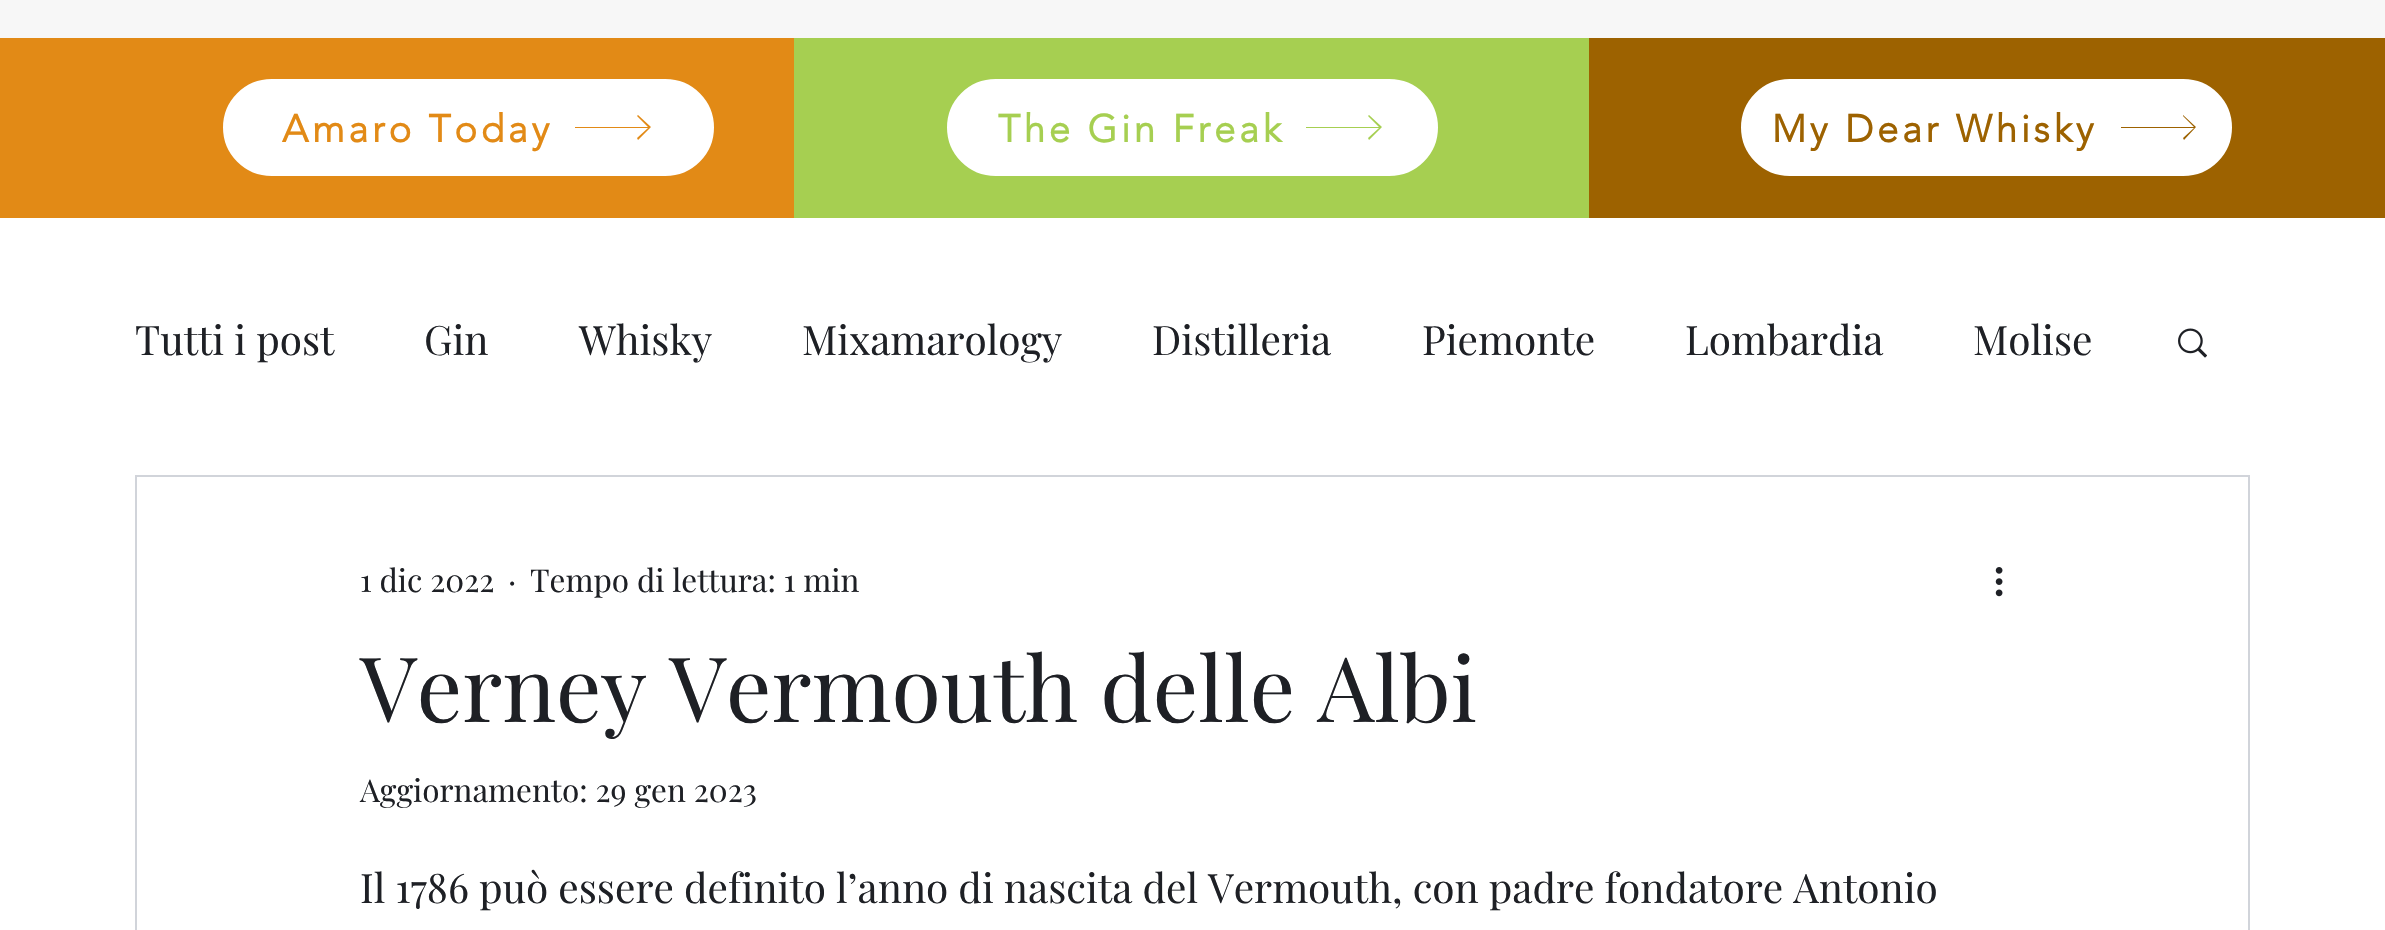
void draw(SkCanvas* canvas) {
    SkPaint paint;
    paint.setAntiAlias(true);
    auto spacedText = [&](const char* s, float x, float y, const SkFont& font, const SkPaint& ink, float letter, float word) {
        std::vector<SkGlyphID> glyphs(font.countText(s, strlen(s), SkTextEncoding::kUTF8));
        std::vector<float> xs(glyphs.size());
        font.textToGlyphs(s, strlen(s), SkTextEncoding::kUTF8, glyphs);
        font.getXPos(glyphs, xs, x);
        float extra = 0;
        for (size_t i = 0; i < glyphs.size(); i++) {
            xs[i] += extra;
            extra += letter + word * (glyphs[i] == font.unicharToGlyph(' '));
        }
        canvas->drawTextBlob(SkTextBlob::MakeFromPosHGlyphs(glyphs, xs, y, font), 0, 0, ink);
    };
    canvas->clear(0xFFFFFFFF);
    paint.setColor(0xFFF7F7F7);
    canvas->drawRect(SkRect::MakeXYWH(0, 0, 2385, 38), paint);
    paint.setColor(0xFFE28A16);
    canvas->drawRect(SkRect::MakeXYWH(0, 38, 794, 180), paint);
    paint.setColor(0xFFFFFFFF);
    canvas->drawRoundRect(SkRect::MakeXYWH(222, 78, 493, 99), 49.5f, 49.5f, paint);
    paint.setStyle(SkPaint::kStroke_Style);
    paint.setStrokeWidth(2);
    paint.setColor(0xFFE28A16);
    canvas->drawRoundRect(SkRect::MakeXYWH(222, 78, 493, 99), 49.5f, 49.5f, paint);
    SkFont font1(fontMgr->matchFamilyStyle("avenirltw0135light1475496", SkFontStyle::Bold()), 38.25f);
    font1.setSubpixel(true);
    paint.setStyle(SkPaint::kFill_Style);
    spacedText("Amaro Today", 282, 142, font1, paint, 3.75f, 0);
    canvas->drawPath(SkPathBuilder().moveTo(638, 115).lineTo(637, 116).lineTo(648, 127).lineTo(575, 127).lineTo(575, 128).lineTo(648, 128).lineTo(637, 138).lineTo(638, 140).lineTo(651, 127).close().detach(), paint);
    paint.setColor(0xFFA6CF51);
    canvas->drawRect(SkRect::MakeXYWH(794, 38, 795, 180), paint);
    paint.setColor(0xFFFFFFFF);
    canvas->drawRoundRect(SkRect::MakeXYWH(946, 78, 493, 99), 49.5f, 49.5f, paint);
    paint.setStyle(SkPaint::kStroke_Style);
    paint.setColor(0xFFA6CF51);
    canvas->drawRoundRect(SkRect::MakeXYWH(946, 78, 493, 99), 49.5f, 49.5f, paint);
    paint.setStyle(SkPaint::kFill_Style);
    spacedText("The Gin Freak", 998, 142, font1, paint, 3.75f, 0);
    canvas->drawPath(SkPathBuilder().moveTo(1369, 115).lineTo(1368, 116).lineTo(1379, 127).lineTo(1306, 127).lineTo(1306, 128).lineTo(1379, 128).lineTo(1368, 138).lineTo(1369, 140).lineTo(1382, 127).close().detach(), paint);
    paint.setColor(0xFF9D6200);
    canvas->drawRect(SkRect::MakeXYWH(1589, 38, 796, 180), paint);
    paint.setColor(0xFFFFFFFF);
    canvas->drawRoundRect(SkRect::MakeXYWH(1740, 78, 493, 99), 49.5f, 49.5f, paint);
    paint.setStyle(SkPaint::kStroke_Style);
    paint.setColor(0xFF9D6200);
    canvas->drawRoundRect(SkRect::MakeXYWH(1740, 78, 493, 99), 49.5f, 49.5f, paint);
    canvas->save();
    canvas->clipRect(SkRect::MakeXYWH(1773, 106, 326, 45));
    paint.setStyle(SkPaint::kFill_Style);
    spacedText("My Dear Whisky", 1772, 142, font1, paint, 3.75f, 0);
    canvas->restore();
    canvas->drawPath(SkPathBuilder().moveTo(2183, 115).lineTo(2183, 116).lineTo(2194, 127).lineTo(2121, 127).lineTo(2121, 128).lineTo(2194, 128).lineTo(2183, 138).lineTo(2184, 140).lineTo(2196, 127).close().detach(), paint);
    SkFont font2(fontMgr->matchFamilyStyle("Playfair Display", SkFontStyle::Normal()), 40.5f);
    font2.setSubpixel(true);
    paint.setColor(0xFF1E2025);
    canvas->drawString("Tutti i post", 135, 355, font2, paint);
    canvas->drawString("Gin", 424, 355, font2, paint);
    canvas->drawString("Whisky", 579, 355, font2, paint);
    canvas->drawString("Mixamarology", 802, 355, font2, paint);
    canvas->drawString("Distilleria", 1152, 355, font2, paint);
    canvas->drawString("Piemonte", 1422, 355, font2, paint);
    canvas->drawString("Lombardia", 1685, 355, font2, paint);
    canvas->drawString("Molise", 1973, 355, font2, paint);
    canvas->drawImageRect(SkImages::DeferredFromEncodedData(SkData::MakeFromFileName("img1.png")), SkRect::MakeXYWH(2178, 328, 29, 30), SkSamplingOptions());
    paint.setStyle(SkPaint::kStroke_Style);
    paint.setColor(0xFFD1D4DA);
    canvas->drawRect(SkRect::MakeXYWH(136, 476, 2113, 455), paint);
    SkFont font3(fontMgr->matchFamilyStyle("Playfair Display", SkFontStyle::Normal()), 31.5f);
    font3.setSubpixel(true);
    paint.setStyle(SkPaint::kFill_Style);
    paint.setColor(0xFF1E2025);
    canvas->drawString("1 dic 2022", 360, 592, font3, paint);
    canvas->drawString("·", 508, 592, font3, paint);
    canvas->drawString("Tempo di lettura: 1 min", 530, 592, font3, paint);
    canvas->drawImageRect(SkImages::DeferredFromEncodedData(SkData::MakeFromFileName("img2.png")), SkRect::MakeXYWH(1995, 567, 8, 30), SkSamplingOptions());
    SkFont font4(fontMgr->matchFamilyStyle("Playfair Display", SkFontStyle::Normal()), 90);
    font4.setSubpixel(true);
    canvas->drawString("Verney Vermouth delle Albi", 360, 722, font4, paint);
    canvas->drawString("Aggiornamento: 29 gen 2023", 360, 802, font3, paint);
    canvas->drawString("Il 1786 può essere definito l’anno di nascita del Vermouth, con padre fondatore Antonio", 360, 903, font2, paint);
}
